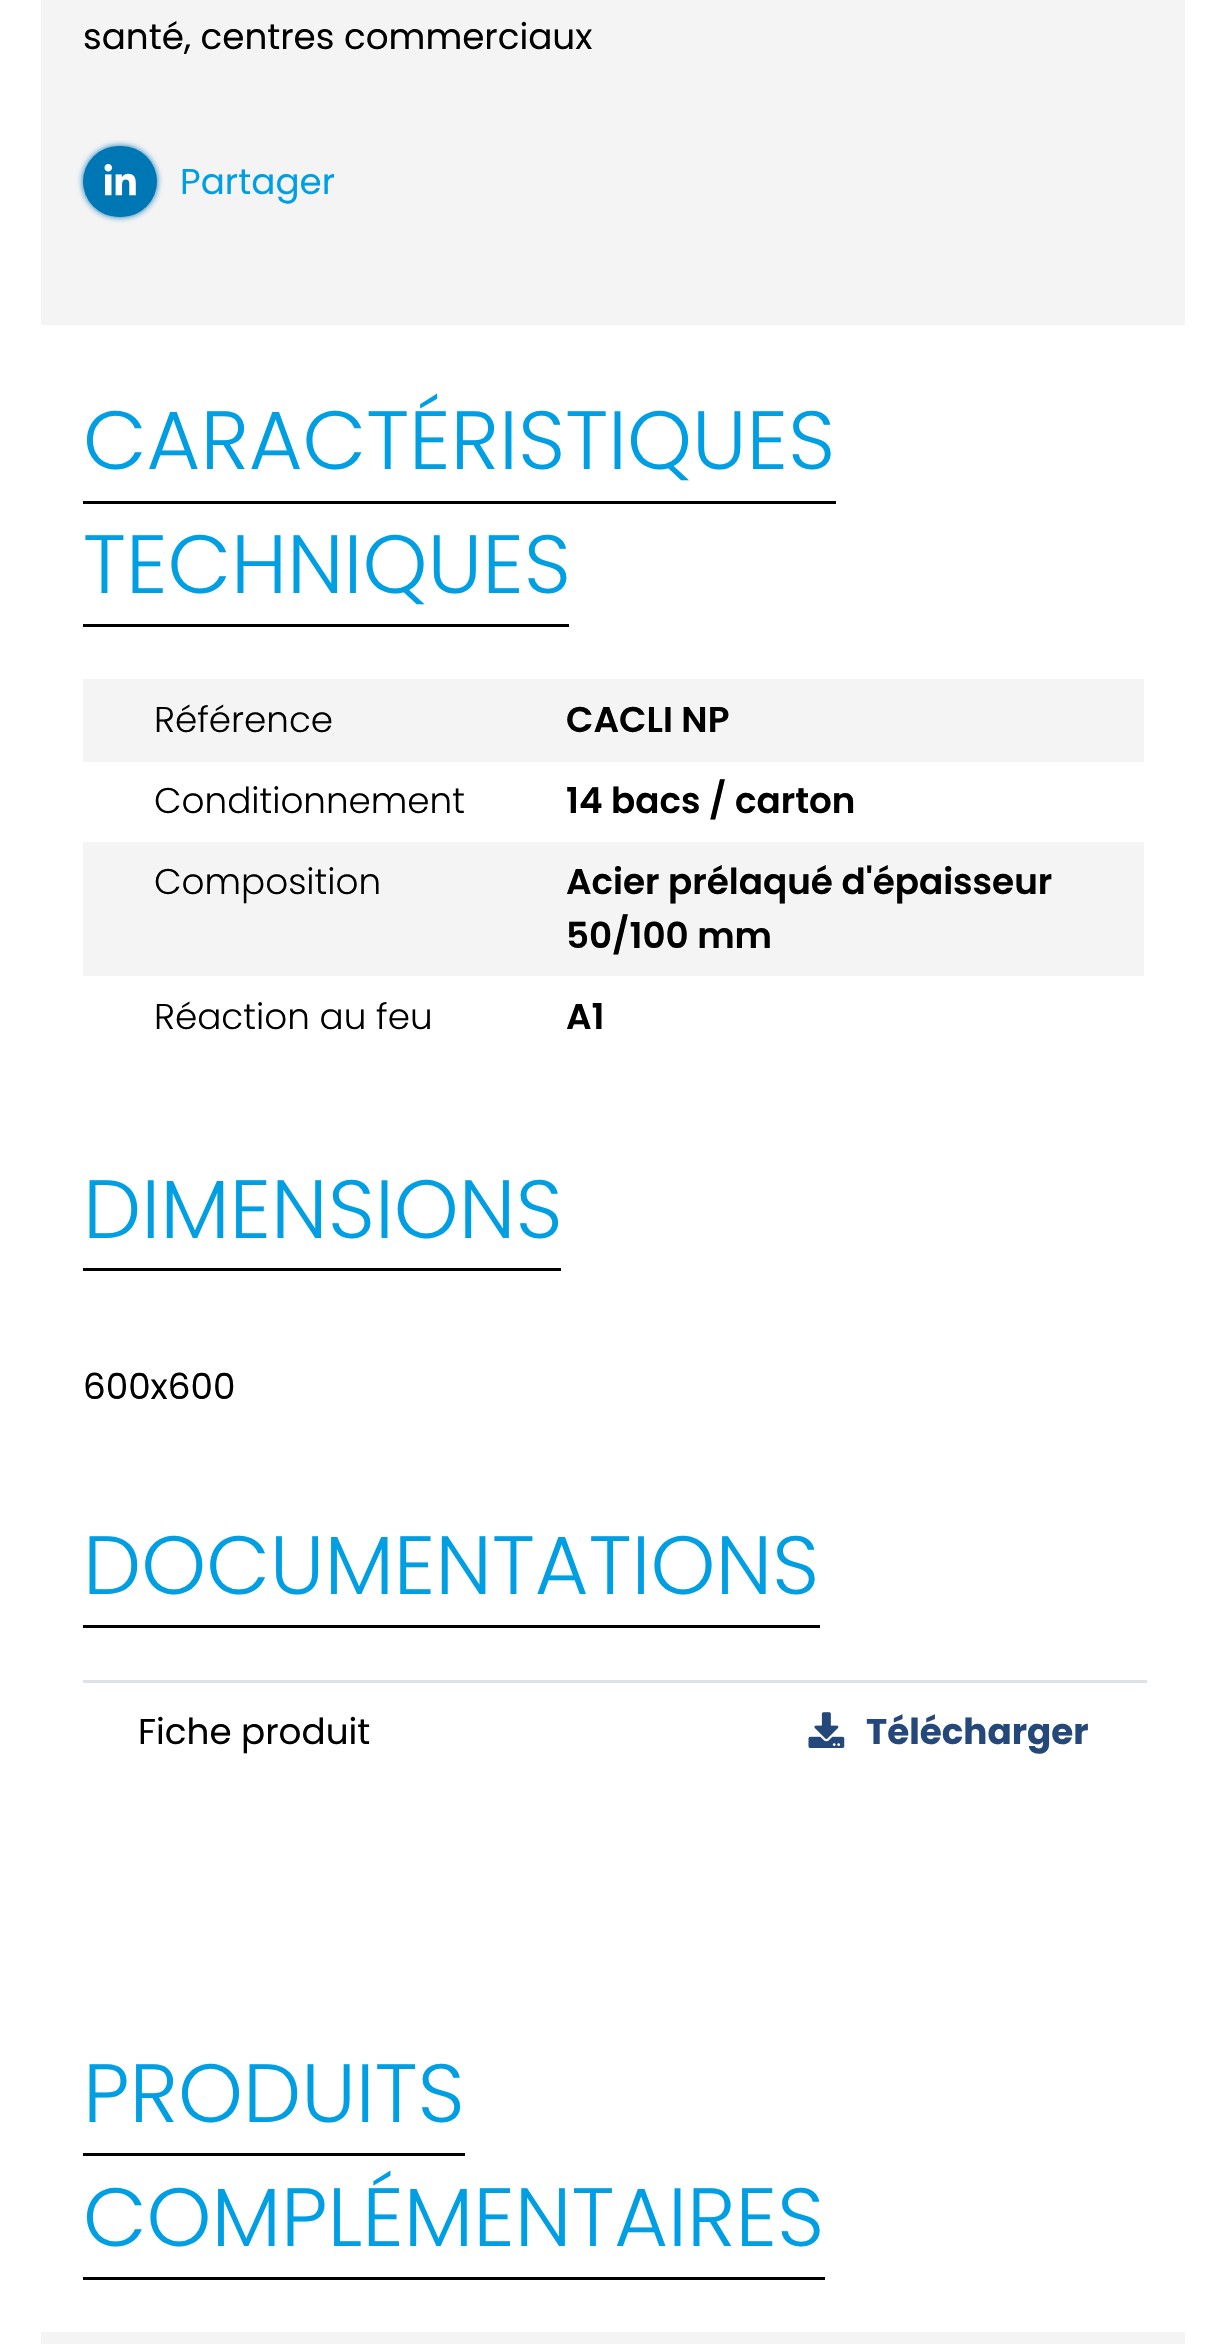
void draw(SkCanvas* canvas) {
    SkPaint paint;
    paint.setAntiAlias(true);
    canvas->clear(0xFFFFFFFF);
    paint.setColor(0xFFF5F4F5);
    canvas->drawRect(SkRect::MakeXYWH(41, 0, 1144, 325), paint);
    SkFont font1(fontMgr->matchFamilyStyle("Poppins", SkFontStyle::Normal()), 35.75f);
    font1.setSubpixel(true);
    paint.setColor(0xFF000000);
    canvas->drawString("santé, centres commerciaux", 83, 49, font1, paint);
    paint.setColor(0xFF0077B5);
    paint.setMaskFilter(SkMaskFilter::MakeBlur(kNormal_SkBlurStyle, 3));
    canvas->drawRoundRect(SkRect::MakeXYWH(83, 146, 74, 71), 35.5f, 35.5f, paint);
    paint.setMaskFilter(nullptr);
    canvas->drawRoundRect(SkRect::MakeXYWH(83, 146, 74, 71), 35.5f, 35.5f, paint);
    canvas->drawImageRect(SkImages::DeferredFromEncodedData(SkData::MakeFromFileName("img1.png")), SkRect::MakeXYWH(104, 164, 32, 32), SkSamplingOptions());
    paint.setColor(0xFF009EE2);
    canvas->drawString("Partager", 180, 194, font1, paint);
    SkFont font2(fontMgr->matchFamilyStyle("Poppins", SkFontStyle(300, SkFontStyle::kNormal_Width, SkFontStyle::kUpright_Slant)), 82.5f);
    font2.setSubpixel(true);
    canvas->drawString("CARACTÉRISTIQUES", 83, 469, font2, paint);
    paint.setColor(0xFF000000);
    canvas->drawRect(SkRect::MakeXYWH(83, 501, 753, 3), paint);
    paint.setColor(0xFF009EE2);
    canvas->drawString("TECHNIQUES", 83, 593, font2, paint);
    paint.setColor(0xFF000000);
    canvas->drawRect(SkRect::MakeXYWH(83, 624, 486, 3), paint);
    paint.setColor(0xFFF5F4F5);
    canvas->drawRect(SkRect::MakeXYWH(83, 679, 1061, 83), paint);
    SkFont font3(fontMgr->matchFamilyStyle("Poppins", SkFontStyle(300, SkFontStyle::kNormal_Width, SkFontStyle::kUpright_Slant)), 35.75f);
    font3.setSubpixel(true);
    paint.setColor(0xFF000000);
    canvas->drawString("Référence", 154, 732, font3, paint);
    SkFont font4(fontMgr->matchFamilyStyle("Poppins", SkFontStyle(600, SkFontStyle::kNormal_Width, SkFontStyle::kUpright_Slant)), 35.75f);
    font4.setSubpixel(true);
    canvas->drawString("CACLI NP", 566, 732, font4, paint);
    canvas->drawString("Conditionnement", 154, 813, font3, paint);
    canvas->drawString("14 bacs / carton", 566, 813, font4, paint);
    paint.setColor(0xFFF5F4F5);
    canvas->drawRect(SkRect::MakeXYWH(83, 842, 1061, 134), paint);
    paint.setColor(0xFF000000);
    canvas->drawString("Composition", 154, 894, font3, paint);
    canvas->drawString("Acier prélaqué d'épaisseur", 566, 894, font4, paint);
    canvas->drawString("50/100 mm", 566, 948, font4, paint);
    canvas->drawString("Réaction au feu", 154, 1029, font3, paint);
    canvas->drawString("A1", 566, 1029, font4, paint);
    paint.setColor(0xFF009EE2);
    canvas->drawString("DIMENSIONS", 83, 1238, font2, paint);
    paint.setColor(0xFF000000);
    canvas->drawRect(SkRect::MakeXYWH(83, 1268, 478, 3), paint);
    canvas->drawString("600x600", 83, 1399, font1, paint);
    paint.setColor(0xFF009EE2);
    canvas->drawString("DOCUMENTATIONS", 83, 1594, font2, paint);
    paint.setColor(0xFF000000);
    canvas->drawRect(SkRect::MakeXYWH(83, 1625, 737, 3), paint);
    canvas->drawString("Fiche produit", 138, 1744, font1, paint);
    paint.setColor(0xFFDEE2E6);
    canvas->drawRect(SkRect::MakeXYWH(83, 1680, 1064, 3), paint);
    canvas->drawImageRect(SkImages::DeferredFromEncodedData(SkData::MakeFromFileName("img2.png")), SkRect::MakeXYWH(808, 1712, 37, 36), SkSamplingOptions());
    SkFont font5(fontMgr->matchFamilyStyle("Poppins", SkFontStyle::Bold()), 35.75f);
    font5.setSubpixel(true);
    paint.setColor(0xFF25487A);
    canvas->drawString("Télécharger", 866, 1744, font5, paint);
    paint.setColor(0xFF009EE2);
    canvas->drawString("PRODUITS", 83, 2122, font2, paint);
    canvas->drawString("COMPLÉMENTAIRES", 83, 2246, font2, paint);
    paint.setColor(0xFF000000);
    canvas->drawRect(SkRect::MakeXYWH(83, 2153, 382, 3), paint);
    canvas->drawRect(SkRect::MakeXYWH(83, 2277, 742, 3), paint);
    paint.setColor(0xFFF5F4F5);
    canvas->drawRect(SkRect::MakeXYWH(41, 2332, 1144, 12), paint);
}
